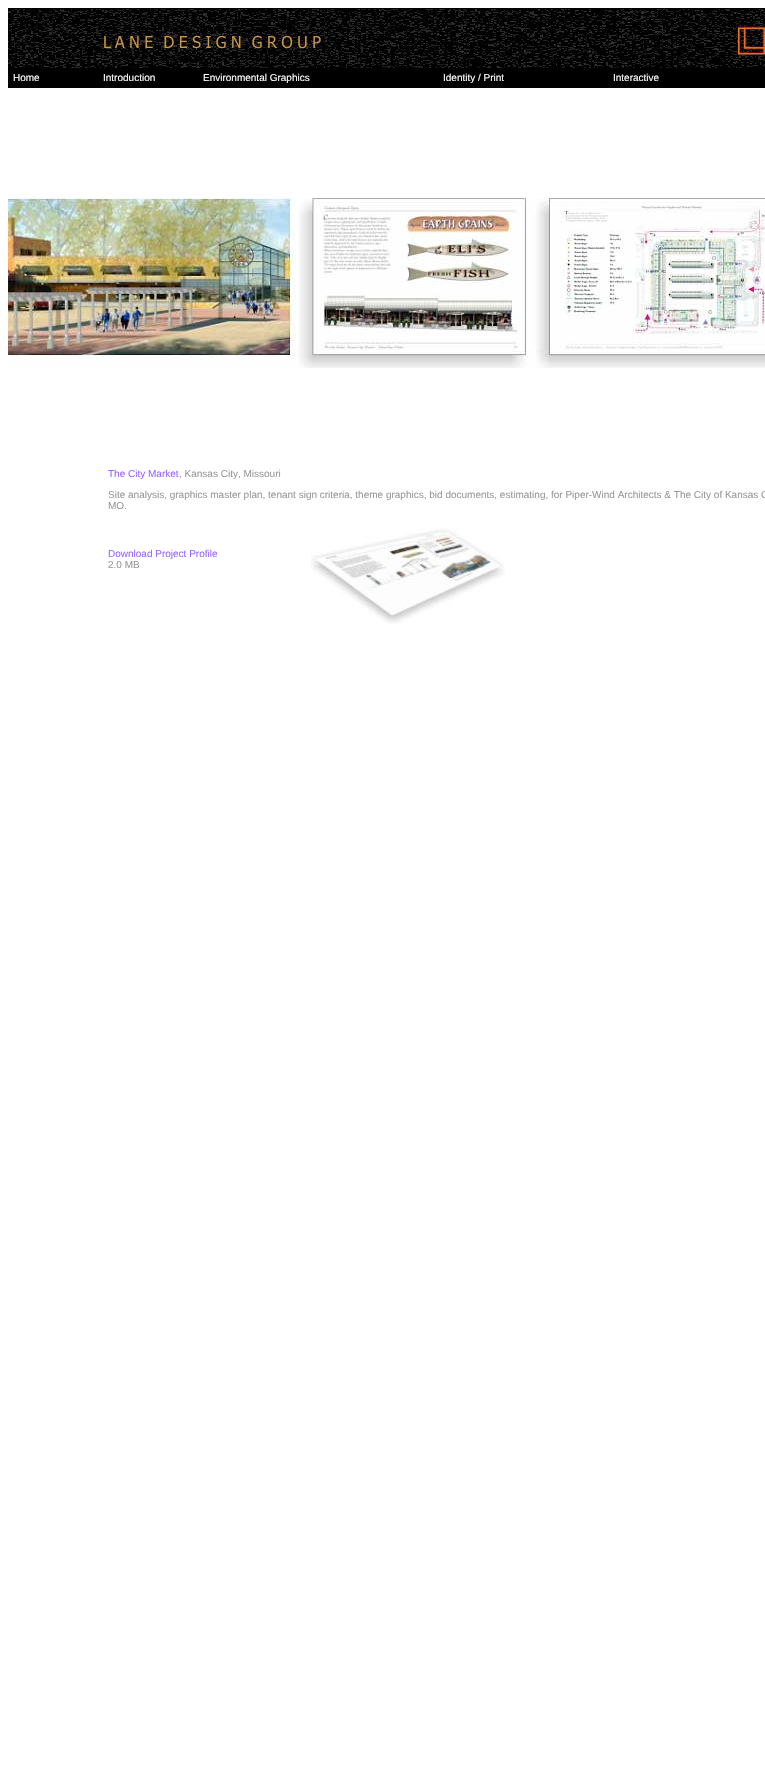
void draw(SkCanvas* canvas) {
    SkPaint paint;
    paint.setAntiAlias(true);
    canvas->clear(0xFFFFFFFF);
    canvas->drawImageRect(SkImages::DeferredFromEncodedData(SkData::MakeFromFileName("img1.png")), SkRect::MakeXYWH(8, 8, 757, 60), SkSamplingOptions());
    paint.setColor(0xFF000000);
    canvas->drawRect(SkRect::MakeXYWH(8, 68, 757, 20), paint);
    SkFont font1(fontMgr->matchFamilyStyle("Liberation Sans", SkFontStyle::Normal()), 10);
    font1.setSubpixel(true);
    paint.setColor(0xFFFFFFFF);
    canvas->drawString("Home", 13, 81, font1, paint);
    canvas->drawString("Introduction", 103, 81, font1, paint);
    canvas->drawString("Environmental Graphics", 203, 81, font1, paint);
    canvas->drawString("Identity / Print", 443, 81, font1, paint);
    canvas->drawString("Interactive", 613, 81, font1, paint);
    canvas->drawImageRect(SkImages::DeferredFromEncodedData(SkData::MakeFromFileName("img2.png")), SkRect::MakeXYWH(8, 198, 757, 170), SkSamplingOptions());
    paint.setColor(0xFF9966FF);
    canvas->drawString("The City Market", 108, 477, font1, paint);
    paint.setColor(0xFF999999);
    canvas->drawString(", Kansas City, Missouri", 179, 477, font1, paint);
    canvas->drawString("Site analysis, graphics master plan, tenant sign criteria, theme graphics, bid documents, estimating, for Piper-Wind Architects & The City of Kansas C", 108, 498, font1, paint);
    canvas->drawString("MO.", 108, 509, font1, paint);
    paint.setColor(0xFF9966FF);
    canvas->drawString("Download Project Profile", 108, 557, font1, paint);
    paint.setColor(0xFF999999);
    canvas->drawString("2.0 MB", 108, 568, font1, paint);
    canvas->drawImageRect(SkImages::DeferredFromEncodedData(SkData::MakeFromFileName("img3.png")), SkRect::MakeXYWH(311, 528, 194, 96), SkSamplingOptions());
}
